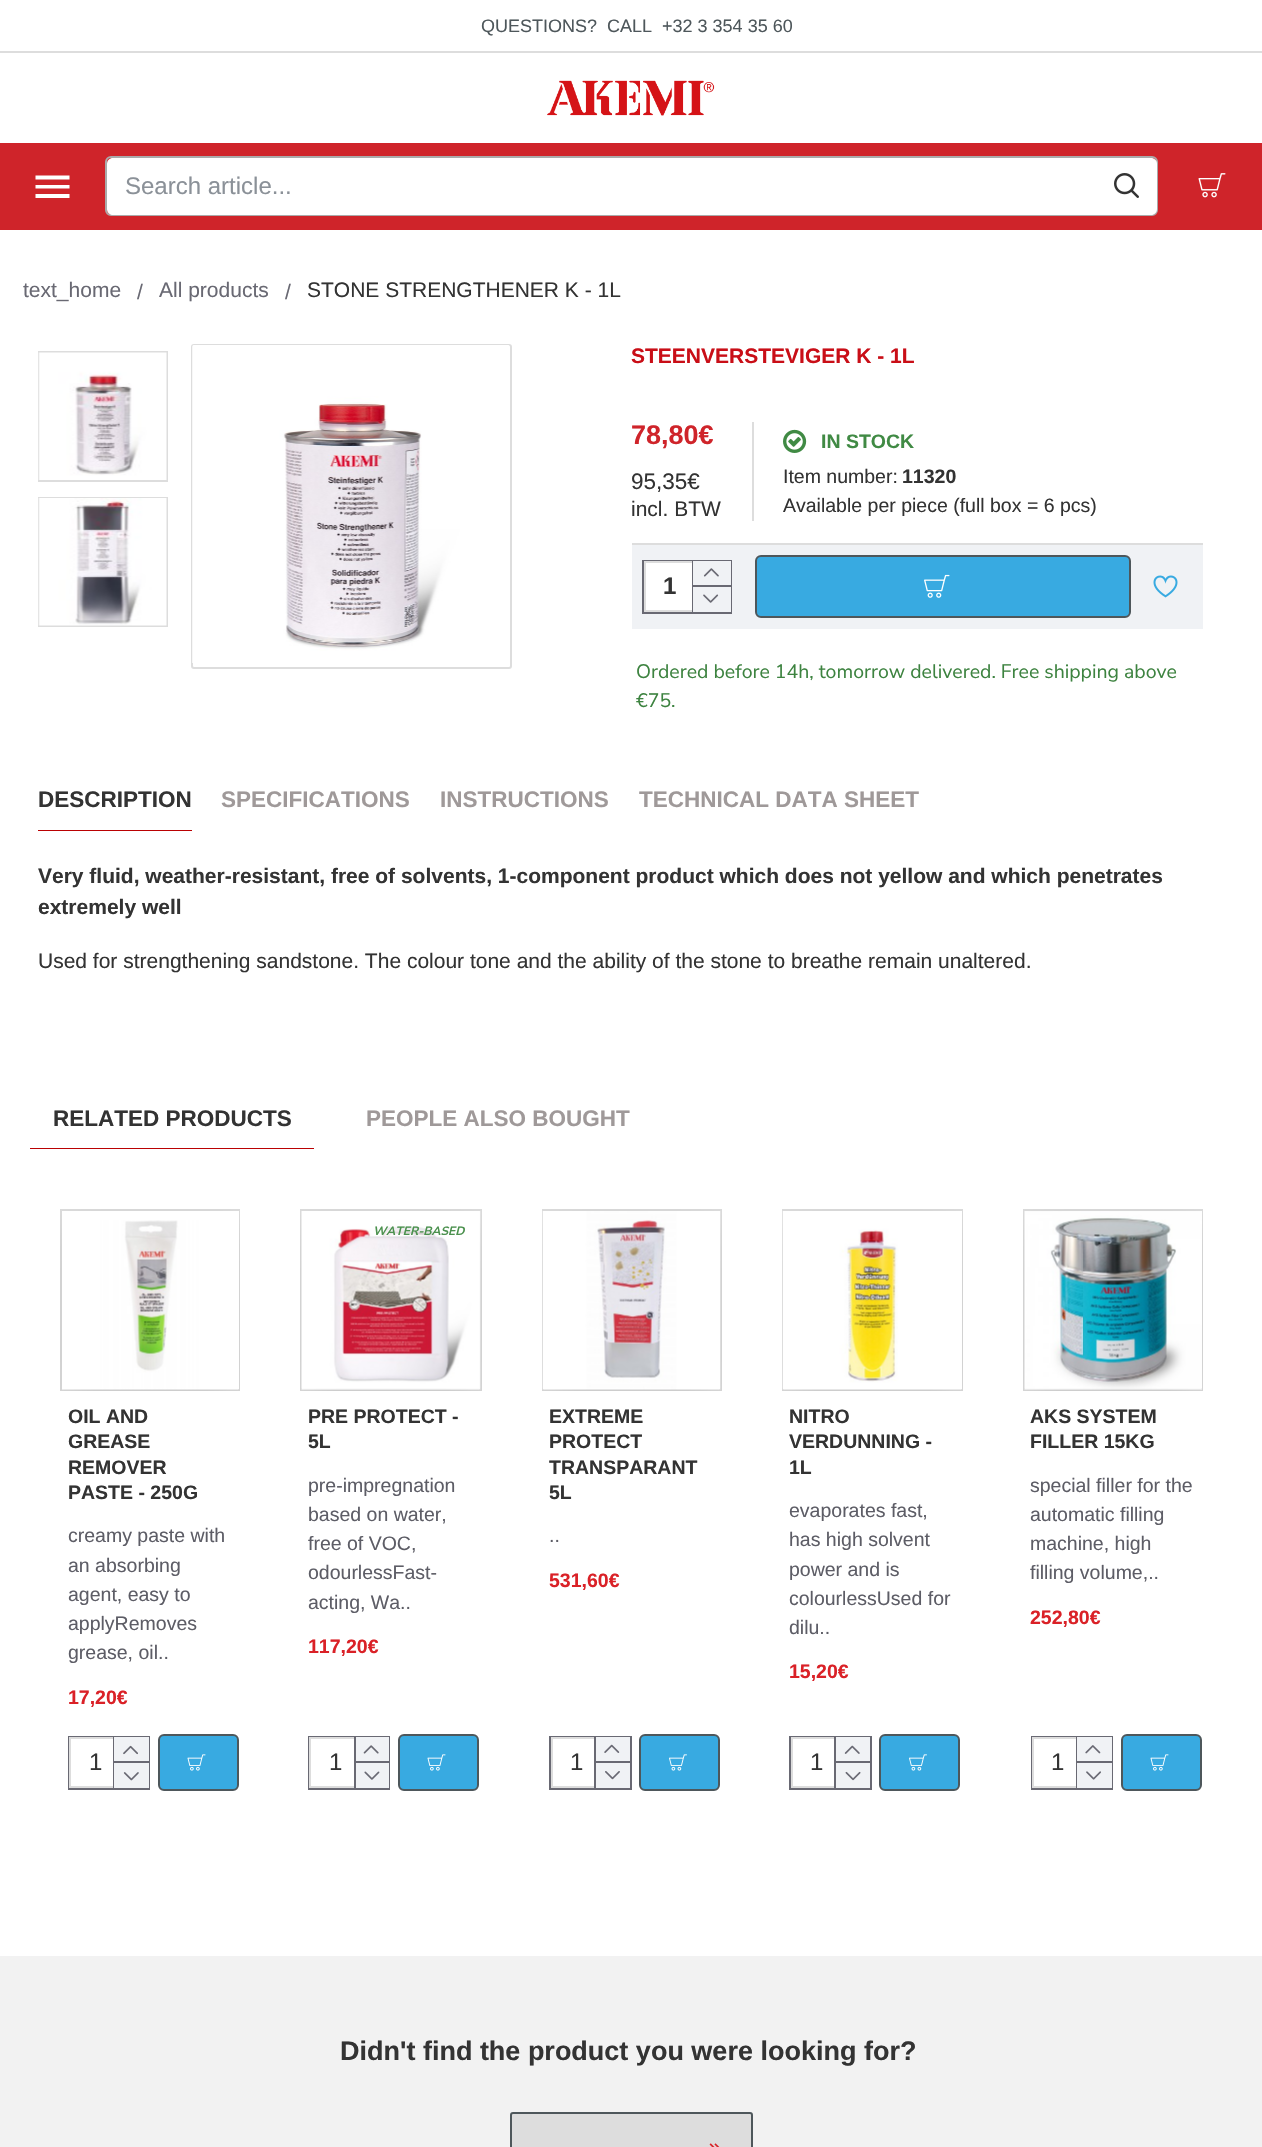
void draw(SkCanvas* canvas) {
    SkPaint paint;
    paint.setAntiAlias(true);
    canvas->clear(0xFFFFFFFF);
    paint.setColor(0xFFDDDDDD);
    canvas->drawRect(SkRect::MakeXYWH(0, 51, 1262, 2), paint);
    SkFont font1(fontMgr->matchFamilyStyle("Liberation Sans", SkFontStyle::Normal()), 18);
    font1.setSubpixel(true);
    paint.setColor(0xFF4E575B);
    canvas->drawString("QUESTIONS?  CALL  +32 3 354 35 60", 481, 32, font1, paint);
    canvas->drawImageRect(SkImages::DeferredFromEncodedData(SkData::MakeFromFileName("img1.png")), SkRect::MakeXYWH(547, 80, 168, 36), SkSamplingOptions());
    paint.setColor(0xFFCF242A);
    canvas->drawRect(SkRect::MakeXYWH(0, 143, 1262, 87), paint);
    paint.setColor(0xFFFFFFFF);
    canvas->drawPath(SkPathBuilder().moveTo(35.5f, 175.5f).lineTo(69.5f, 175.5f).lineTo(69.5f, 179.5f).lineTo(35.5f, 179.5f).close().moveTo(35.5f, 188.5f).lineTo(35.5f, 185).lineTo(69.5f, 185).lineTo(69.5f, 188.5f).close().moveTo(35.5f, 198).lineTo(35.5f, 194).lineTo(69.5f, 194).lineTo(69.5f, 198).close().detach(), paint);
    paint.setStyle(SkPaint::kStroke_Style);
    paint.setStrokeWidth(2);
    paint.setColor(0xFFAAAAAA);
    canvas->drawRoundRect(SkRect::MakeXYWH(106, 157, 1051, 58), 5, 5, paint);
    paint.setStyle(SkPaint::kFill_Style);
    paint.setColor(0xFFFFFFFF);
    canvas->drawPath(SkPathBuilder().moveTo(113, 158).lineTo(1097, 158).lineTo(1097, 215).lineTo(113, 215).cubicTo(109.5f, 215, 107, 212.5f, 107, 209).lineTo(107, 164).cubicTo(107, 160.5f, 109.5f, 158, 113, 158).close().detach(), paint);
    SkFont font2(fontMgr->matchFamilyStyle("Liberation Sans", SkFontStyle::Normal()), 24);
    font2.setSubpixel(true);
    paint.setColor(0xFF8B9198);
    canvas->drawString("Search article...", 125, 194, font2, paint);
    paint.setColor(0xFFFFFFFF);
    canvas->drawPath(SkPathBuilder().moveTo(1097, 158).lineTo(1151, 158).cubicTo(1154.5f, 158, 1157, 160.5f, 1157, 164).lineTo(1157, 209).cubicTo(1157, 212.5f, 1154.5f, 215, 1151, 215).lineTo(1097, 215).close().detach(), paint);
    canvas->drawImageRect(SkImages::DeferredFromEncodedData(SkData::MakeFromFileName("img2.png")), SkRect::MakeXYWH(1114, 173, 25, 25), SkSamplingOptions());
    canvas->drawImageRect(SkImages::DeferredFromEncodedData(SkData::MakeFromFileName("img3.png")), SkRect::MakeXYWH(1198, 173, 28, 25), SkSamplingOptions());
    SkFont font3(fontMgr->matchFamilyStyle("Liberation Sans", SkFontStyle::Normal()), 21);
    font3.setSubpixel(true);
    paint.setColor(0xFF696973);
    canvas->drawString("text_home", 23, 297, font3, paint);
    canvas->drawString("/", 137, 299, font3, paint);
    canvas->drawString("All products", 159, 297, font3, paint);
    canvas->drawString("/", 285, 299, font3, paint);
    paint.setColor(0xFF333333);
    canvas->drawString("STONE STRENGTHENER K - 1L", 307, 297, font3, paint);
    paint.setStyle(SkPaint::kStroke_Style);
    paint.setColor(0xFFDDDDDD);
    canvas->drawRect(SkRect::MakeXYWH(39, 352, 128, 129), paint);
    canvas->drawImageRect(SkImages::DeferredFromEncodedData(SkData::MakeFromFileName("img4.png")), SkRect::MakeXYWH(38, 352, 129, 128), SkSamplingOptions());
    canvas->drawRect(SkRect::MakeXYWH(39, 498, 128, 128), paint);
    canvas->drawImageRect(SkImages::DeferredFromEncodedData(SkData::MakeFromFileName("img5.png")), SkRect::MakeXYWH(38, 498, 129, 128), SkSamplingOptions());
    canvas->drawRoundRect(SkRect::MakeXYWH(192, 345, 319, 323), 2, 2, paint);
    canvas->drawImageRect(SkImages::DeferredFromEncodedData(SkData::MakeFromFileName("img6.png")), SkRect::MakeXYWH(192, 345, 318, 318), SkSamplingOptions());
    SkFont font4(fontMgr->matchFamilyStyle("Liberation Sans", SkFontStyle::Bold()), 21);
    font4.setSubpixel(true);
    paint.setStyle(SkPaint::kFill_Style);
    paint.setColor(0xFFC90E17);
    canvas->drawString("STEENVERSTEVIGER K - 1L", 631, 363, font4, paint);
    SkFont font5(fontMgr->matchFamilyStyle("Liberation Sans", SkFontStyle::Bold()), 27);
    font5.setSubpixel(true);
    paint.setColor(0xFFCF242A);
    canvas->drawString("78,80€", 631, 444, font5, paint);
    SkFont font6(fontMgr->matchFamilyStyle("Liberation Sans", SkFontStyle::Normal()), 22.5f);
    font6.setSubpixel(true);
    paint.setColor(0xFF333333);
    canvas->drawString("95,35€", 631, 489, font6, paint);
    canvas->drawString("incl. BTW", 631, 516, font3, paint);
    paint.setColor(0xFFDDDDDD);
    canvas->drawRect(SkRect::MakeXYWH(752, 422, 2, 99), paint);
    canvas->drawImageRect(SkImages::DeferredFromEncodedData(SkData::MakeFromFileName("img7.png")), SkRect::MakeXYWH(783, 429, 24, 24), SkSamplingOptions());
    SkFont font7(fontMgr->matchFamilyStyle("Liberation Sans", SkFontStyle::Bold()), 19.5f);
    font7.setSubpixel(true);
    paint.setColor(0xFF408A44);
    canvas->drawString("IN STOCK", 821, 448, font7, paint);
    SkFont font8(fontMgr->matchFamilyStyle("Liberation Sans", SkFontStyle::Normal()), 19.5f);
    font8.setSubpixel(true);
    paint.setColor(0xFF333333);
    canvas->drawString("Item number:", 783, 483, font8, paint);
    canvas->drawString("11320", 902, 483, font7, paint);
    canvas->drawString("Available per piece (full box = 6 pcs)", 783, 512, font8, paint);
    paint.setColor(0xFFF0F2F5);
    canvas->drawRect(SkRect::MakeXYWH(632, 545, 571, 84), paint);
    paint.setColor(0xFFDDDDDD);
    canvas->drawRect(SkRect::MakeXYWH(632, 543, 571, 2), paint);
    paint.setStyle(SkPaint::kStroke_Style);
    paint.setColor(0xFF696973);
    canvas->drawRect(SkRect::MakeXYWH(643, 561, 88, 52), paint);
    paint.setStyle(SkPaint::kFill_Style);
    paint.setColor(0xFFFFFFFF);
    canvas->drawRect(SkRect::MakeXYWH(646, 563, 46, 47), paint);
    paint.setStyle(SkPaint::kStroke_Style);
    paint.setColor(0xFFDDDDDD);
    canvas->drawRect(SkRect::MakeXYWH(645, 562, 85, 49), paint);
    SkFont font9(fontMgr->matchFamilyStyle("Liberation Sans", SkFontStyle::Bold()), 24);
    font9.setSubpixel(true);
    paint.setStyle(SkPaint::kFill_Style);
    paint.setColor(0xFF333333);
    canvas->drawString("1", 663, 594, font9, paint);
    paint.setColor(0xFF696973);
    canvas->drawRect(SkRect::MakeXYWH(692, 561, 1, 51), paint);
    paint.setColor(0xFFF0F2F5);
    canvas->drawRect(SkRect::MakeXYWH(693, 561, 38, 24), paint);
    paint.setColor(0xFF696973);
    canvas->drawRect(SkRect::MakeXYWH(693, 585, 38, 2), paint);
    canvas->drawImageRect(SkImages::DeferredFromEncodedData(SkData::MakeFromFileName("img8.png")), SkRect::MakeXYWH(703, 568, 16, 9), SkSamplingOptions());
    paint.setColor(0xFFF0F2F5);
    canvas->drawRect(SkRect::MakeXYWH(693, 587, 38, 25), paint);
    canvas->drawImageRect(SkImages::DeferredFromEncodedData(SkData::MakeFromFileName("img9.png")), SkRect::MakeXYWH(703, 594, 16, 9), SkSamplingOptions());
    paint.setColor(0xFF38AAE1);
    canvas->drawRoundRect(SkRect::MakeXYWH(756, 556, 374, 61), 5, 5, paint);
    paint.setStyle(SkPaint::kStroke_Style);
    paint.setColor(0xFF4E575B);
    canvas->drawRoundRect(SkRect::MakeXYWH(756, 556, 374, 61), 5, 5, paint);
    canvas->drawImageRect(SkImages::DeferredFromEncodedData(SkData::MakeFromFileName("img10.png")), SkRect::MakeXYWH(924, 574, 26, 24), SkSamplingOptions());
    canvas->drawImageRect(SkImages::DeferredFromEncodedData(SkData::MakeFromFileName("img11.png")), SkRect::MakeXYWH(1153, 575, 25, 23), SkSamplingOptions());
    SkFont font10(fontMgr->matchFamilyStyle("Nunito Sans", SkFontStyle::Normal()), 19.5f);
    font10.setSubpixel(true);
    paint.setStyle(SkPaint::kFill_Style);
    paint.setColor(0xFF3D8340);
    canvas->drawString("Ordered before 14h, tomorrow delivered. Free shipping above", 636, 678, font10, paint);
    canvas->drawString("€75.", 636, 707, font10, paint);
    paint.setColor(0xFFBA0103);
    canvas->drawRect(SkRect::MakeXYWH(38, 830, 154, 1), paint);
    SkFont font11(fontMgr->matchFamilyStyle("Liberation Sans", SkFontStyle::Bold()), 22.5f);
    font11.setSubpixel(true);
    paint.setColor(0xFF333333);
    canvas->drawString("DESCRIPTION", 38, 807, font11, paint);
    paint.setColor(0xFF9F9999);
    canvas->drawString("SPECIFICATIONS", 221, 807, font11, paint);
    canvas->drawString("INSTRUCTIONS", 440, 807, font11, paint);
    canvas->drawString("TECHNICAL DATA SHEET", 639, 807, font11, paint);
    paint.setColor(0xFF333333);
    canvas->drawString("Very fluid, weather-resistant, free of solvents, 1-component product which does not yellow and which penetrates", 38, 883, font4, paint);
    canvas->drawString("extremely well", 38, 914, font4, paint);
    canvas->drawString("Used for strengthening sandstone. The colour tone and the ability of the stone to breathe remain unaltered.", 38, 968, font3, paint);
    paint.setColor(0xFFBA0103);
    canvas->drawRect(SkRect::MakeXYWH(30, 1148, 284, 1), paint);
    paint.setColor(0xFF333333);
    canvas->drawString("RELATED PRODUCTS", 53, 1126, font11, paint);
    paint.setColor(0xFF9F9999);
    canvas->drawString("PEOPLE ALSO BOUGHT", 366, 1126, font11, paint);
    paint.setStyle(SkPaint::kStroke_Style);
    paint.setColor(0xFFDDDDDD);
    canvas->drawRect(SkRect::MakeXYWH(61, 1210, 178, 180), paint);
    canvas->save();
    canvas->clipRect(SkRect::MakeXYWH(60, 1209, 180, 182));
    paint.setStyle(SkPaint::kFill_Style);
    paint.setColor(0x1A000000);
    paint.setMaskFilter(SkMaskFilter::MakeBlur(kNormal_SkBlurStyle, 22.5f));
    canvas->drawRect(SkRect::MakeXYWH(62, 1226, 177, 178), paint);
    paint.setMaskFilter(nullptr);
    canvas->restore();
    paint.setColor(0xFFFFFFFF);
    canvas->drawRect(SkRect::MakeXYWH(62, 1211, 177, 178), paint);
    canvas->drawImageRect(SkImages::DeferredFromEncodedData(SkData::MakeFromFileName("img12.png")), SkRect::MakeXYWH(62, 1220, 177, 170), SkSamplingOptions());
    paint.setColor(0xFF333333);
    canvas->drawString("OIL AND", 68, 1423, font7, paint);
    canvas->drawString("GREASE", 68, 1448, font7, paint);
    canvas->drawString("REMOVER", 68, 1474, font7, paint);
    canvas->drawString("PASTE - 250G", 68, 1499, font7, paint);
    paint.setColor(0xFF5D5D66);
    canvas->drawString("creamy paste with", 68, 1542, font8, paint);
    canvas->drawString("an absorbing", 68, 1572, font8, paint);
    canvas->drawString("agent, easy to", 68, 1601, font8, paint);
    canvas->drawString("applyRemoves", 68, 1630, font8, paint);
    canvas->drawString("grease, oil..", 68, 1659, font8, paint);
    paint.setColor(0xFFDA2127);
    canvas->drawString("17,20€", 68, 1704, font7, paint);
    paint.setStyle(SkPaint::kStroke_Style);
    paint.setColor(0xFF696973);
    canvas->drawRect(SkRect::MakeXYWH(69, 1737, 80, 52), paint);
    paint.setColor(0xFFDDDDDD);
    canvas->drawRect(SkRect::MakeXYWH(70, 1738, 78, 49), paint);
    paint.setStyle(SkPaint::kFill_Style);
    paint.setColor(0xFF333333);
    canvas->drawString("1", 89, 1770, font2, paint);
    paint.setColor(0xFF696973);
    canvas->drawRect(SkRect::MakeXYWH(113, 1737, 1, 51), paint);
    paint.setColor(0xFFF0F2F5);
    canvas->drawRect(SkRect::MakeXYWH(114, 1737, 35, 24), paint);
    paint.setColor(0xFF696973);
    canvas->drawRect(SkRect::MakeXYWH(114, 1761, 35, 2), paint);
    canvas->drawImageRect(SkImages::DeferredFromEncodedData(SkData::MakeFromFileName("img13.png")), SkRect::MakeXYWH(123, 1745, 15, 10), SkSamplingOptions());
    paint.setColor(0xFFF0F2F5);
    canvas->drawRect(SkRect::MakeXYWH(114, 1763, 35, 25), paint);
    canvas->drawImageRect(SkImages::DeferredFromEncodedData(SkData::MakeFromFileName("img14.png")), SkRect::MakeXYWH(123, 1772, 16, 9), SkSamplingOptions());
    paint.setColor(0xFF38AAE1);
    canvas->drawRoundRect(SkRect::MakeXYWH(159, 1735, 79, 55), 5, 5, paint);
    paint.setStyle(SkPaint::kStroke_Style);
    paint.setColor(0xFF4E575B);
    canvas->drawRoundRect(SkRect::MakeXYWH(159, 1735, 79, 55), 5, 5, paint);
    canvas->drawImageRect(SkImages::DeferredFromEncodedData(SkData::MakeFromFileName("img15.png")), SkRect::MakeXYWH(187, 1754, 19, 17), SkSamplingOptions());
    paint.setColor(0xFFDDDDDD);
    canvas->drawRect(SkRect::MakeXYWH(301, 1210, 180, 180), paint);
    canvas->save();
    canvas->clipRect(SkRect::MakeXYWH(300, 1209, 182, 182));
    paint.setStyle(SkPaint::kFill_Style);
    paint.setColor(0x1A000000);
    paint.setMaskFilter(SkMaskFilter::MakeBlur(kNormal_SkBlurStyle, 22.5f));
    canvas->drawRect(SkRect::MakeXYWH(302, 1226, 178, 178), paint);
    paint.setMaskFilter(nullptr);
    canvas->restore();
    canvas->drawImageRect(SkImages::DeferredFromEncodedData(SkData::MakeFromFileName("img16.png")), SkRect::MakeXYWH(301, 1211, 180, 179), SkSamplingOptions());
    SkFont font12(fontMgr->matchFamilyStyle("Nunito Sans", SkFontStyle::BoldItalic()), 12);
    font12.setSubpixel(true);
    paint.setColor(0xFF4B914E);
    canvas->drawString("WATER-BASED", 373, 1235, font12, paint);
    paint.setColor(0xFF333333);
    canvas->drawString("PRE PROTECT -", 308, 1423, font7, paint);
    canvas->drawString("5L", 308, 1448, font7, paint);
    paint.setColor(0xFF5D5D66);
    canvas->drawString("pre-impregnation", 308, 1492, font8, paint);
    canvas->drawString("based on water,", 308, 1521, font8, paint);
    canvas->drawString("free of VOC,", 308, 1550, font8, paint);
    canvas->drawString("odourlessFast-", 308, 1579, font8, paint);
    canvas->drawString("acting, Wa..", 308, 1609, font8, paint);
    paint.setColor(0xFFDA2127);
    canvas->drawString("117,20€", 308, 1653, font7, paint);
    paint.setStyle(SkPaint::kStroke_Style);
    paint.setColor(0xFF696973);
    canvas->drawRect(SkRect::MakeXYWH(309, 1737, 80, 52), paint);
    paint.setColor(0xFFDDDDDD);
    canvas->drawRect(SkRect::MakeXYWH(310, 1738, 78, 49), paint);
    paint.setStyle(SkPaint::kFill_Style);
    paint.setColor(0xFF333333);
    canvas->drawString("1", 329, 1770, font2, paint);
    paint.setColor(0xFF696973);
    canvas->drawRect(SkRect::MakeXYWH(354, 1737, 2, 51), paint);
    paint.setColor(0xFFF0F2F5);
    canvas->drawRect(SkRect::MakeXYWH(356, 1737, 33, 24), paint);
    paint.setColor(0xFF696973);
    canvas->drawRect(SkRect::MakeXYWH(356, 1761, 33, 2), paint);
    canvas->drawImageRect(SkImages::DeferredFromEncodedData(SkData::MakeFromFileName("img17.png")), SkRect::MakeXYWH(363, 1745, 16, 9), SkSamplingOptions());
    paint.setColor(0xFFF0F2F5);
    canvas->drawRect(SkRect::MakeXYWH(356, 1763, 33, 25), paint);
    canvas->drawImageRect(SkImages::DeferredFromEncodedData(SkData::MakeFromFileName("img18.png")), SkRect::MakeXYWH(364, 1771, 16, 9), SkSamplingOptions());
    paint.setColor(0xFF38AAE1);
    canvas->drawRoundRect(SkRect::MakeXYWH(399, 1735, 79, 55), 5, 5, paint);
    paint.setStyle(SkPaint::kStroke_Style);
    paint.setColor(0xFF4E575B);
    canvas->drawRoundRect(SkRect::MakeXYWH(399, 1735, 79, 55), 5, 5, paint);
    canvas->drawImageRect(SkImages::DeferredFromEncodedData(SkData::MakeFromFileName("img15.png")), SkRect::MakeXYWH(427, 1754, 19, 17), SkSamplingOptions());
    paint.setColor(0xFFDDDDDD);
    canvas->drawRect(SkRect::MakeXYWH(543, 1210, 178, 180), paint);
    canvas->save();
    canvas->clipRect(SkRect::MakeXYWH(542, 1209, 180, 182));
    paint.setStyle(SkPaint::kFill_Style);
    paint.setColor(0x1A000000);
    paint.setMaskFilter(SkMaskFilter::MakeBlur(kNormal_SkBlurStyle, 22.5f));
    canvas->drawRect(SkRect::MakeXYWH(543, 1226, 177, 178), paint);
    paint.setMaskFilter(nullptr);
    canvas->restore();
    paint.setColor(0xFFFFFFFF);
    canvas->drawRect(SkRect::MakeXYWH(543, 1211, 177, 178), paint);
    canvas->drawImageRect(SkImages::DeferredFromEncodedData(SkData::MakeFromFileName("img19.png")), SkRect::MakeXYWH(542, 1211, 179, 179), SkSamplingOptions());
    paint.setColor(0xFF333333);
    canvas->drawString("EXTREME", 549, 1423, font7, paint);
    canvas->drawString("PROTECT", 549, 1448, font7, paint);
    canvas->drawString("TRANSPARANT", 549, 1474, font7, paint);
    canvas->drawString("5L", 549, 1499, font7, paint);
    paint.setColor(0xFF5D5D66);
    canvas->drawString("..", 549, 1542, font8, paint);
    paint.setColor(0xFFDA2127);
    canvas->drawString("531,60€", 549, 1587, font7, paint);
    paint.setStyle(SkPaint::kStroke_Style);
    paint.setColor(0xFF696973);
    canvas->drawRect(SkRect::MakeXYWH(550, 1737, 81, 52), paint);
    paint.setColor(0xFFDDDDDD);
    canvas->drawRect(SkRect::MakeXYWH(552, 1738, 77, 49), paint);
    paint.setStyle(SkPaint::kFill_Style);
    paint.setColor(0xFF333333);
    canvas->drawString("1", 570, 1770, font2, paint);
    paint.setColor(0xFF696973);
    canvas->drawRect(SkRect::MakeXYWH(594, 1737, 2, 51), paint);
    paint.setColor(0xFFF0F2F5);
    canvas->drawRect(SkRect::MakeXYWH(596, 1737, 34, 24), paint);
    paint.setColor(0xFF696973);
    canvas->drawRect(SkRect::MakeXYWH(596, 1761, 34, 2), paint);
    canvas->drawImageRect(SkImages::DeferredFromEncodedData(SkData::MakeFromFileName("img20.png")), SkRect::MakeXYWH(604, 1744, 16, 9), SkSamplingOptions());
    paint.setColor(0xFFF0F2F5);
    canvas->drawRect(SkRect::MakeXYWH(596, 1763, 34, 25), paint);
    canvas->drawImageRect(SkImages::DeferredFromEncodedData(SkData::MakeFromFileName("img21.png")), SkRect::MakeXYWH(605, 1771, 15, 9), SkSamplingOptions());
    paint.setColor(0xFF38AAE1);
    canvas->drawRoundRect(SkRect::MakeXYWH(640, 1735, 79, 55), 5, 5, paint);
    paint.setStyle(SkPaint::kStroke_Style);
    paint.setColor(0xFF4E575B);
    canvas->drawRoundRect(SkRect::MakeXYWH(640, 1735, 79, 55), 5, 5, paint);
    canvas->drawImageRect(SkImages::DeferredFromEncodedData(SkData::MakeFromFileName("img22.png")), SkRect::MakeXYWH(669, 1754, 18, 17), SkSamplingOptions());
    paint.setColor(0xFFDDDDDD);
    canvas->drawRect(SkRect::MakeXYWH(783, 1210, 179, 180), paint);
    canvas->save();
    canvas->clipRect(SkRect::MakeXYWH(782, 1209, 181, 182));
    paint.setStyle(SkPaint::kFill_Style);
    paint.setColor(0x1A000000);
    paint.setMaskFilter(SkMaskFilter::MakeBlur(kNormal_SkBlurStyle, 22.5f));
    canvas->drawRect(SkRect::MakeXYWH(783, 1226, 179, 178), paint);
    paint.setMaskFilter(nullptr);
    canvas->restore();
    paint.setColor(0xFFFFFFFF);
    canvas->drawRect(SkRect::MakeXYWH(783, 1211, 179, 178), paint);
    canvas->drawImageRect(SkImages::DeferredFromEncodedData(SkData::MakeFromFileName("img23.png")), SkRect::MakeXYWH(782, 1211, 180, 179), SkSamplingOptions());
    paint.setColor(0xFF333333);
    canvas->drawString("NITRO", 789, 1423, font7, paint);
    canvas->drawString("VERDUNNING -", 789, 1448, font7, paint);
    canvas->drawString("1L", 789, 1474, font7, paint);
    paint.setColor(0xFF5D5D66);
    canvas->drawString("evaporates fast,", 789, 1517, font8, paint);
    canvas->drawString("has high solvent", 789, 1546, font8, paint);
    canvas->drawString("power and is", 789, 1576, font8, paint);
    canvas->drawString("colourlessUsed for", 789, 1605, font8, paint);
    canvas->drawString("dilu..", 789, 1634, font8, paint);
    paint.setColor(0xFFDA2127);
    canvas->drawString("15,20€", 789, 1678, font7, paint);
    paint.setStyle(SkPaint::kStroke_Style);
    paint.setColor(0xFF696973);
    canvas->drawRect(SkRect::MakeXYWH(790, 1737, 81, 52), paint);
    paint.setColor(0xFFDDDDDD);
    canvas->drawRect(SkRect::MakeXYWH(792, 1738, 77, 49), paint);
    paint.setStyle(SkPaint::kFill_Style);
    paint.setColor(0xFF333333);
    canvas->drawString("1", 810, 1770, font2, paint);
    paint.setColor(0xFF696973);
    canvas->drawRect(SkRect::MakeXYWH(834, 1737, 2, 51), paint);
    paint.setColor(0xFFF0F2F5);
    canvas->drawRect(SkRect::MakeXYWH(836, 1737, 34, 24), paint);
    paint.setColor(0xFF696973);
    canvas->drawRect(SkRect::MakeXYWH(836, 1761, 34, 2), paint);
    canvas->drawImageRect(SkImages::DeferredFromEncodedData(SkData::MakeFromFileName("img24.png")), SkRect::MakeXYWH(844, 1745, 16, 9), SkSamplingOptions());
    paint.setColor(0xFFF0F2F5);
    canvas->drawRect(SkRect::MakeXYWH(836, 1763, 34, 25), paint);
    canvas->drawImageRect(SkImages::DeferredFromEncodedData(SkData::MakeFromFileName("img25.png")), SkRect::MakeXYWH(845, 1771, 16, 10), SkSamplingOptions());
    paint.setColor(0xFF38AAE1);
    canvas->drawRoundRect(SkRect::MakeXYWH(880, 1735, 79, 55), 5, 5, paint);
    paint.setStyle(SkPaint::kStroke_Style);
    paint.setColor(0xFF4E575B);
    canvas->drawRoundRect(SkRect::MakeXYWH(880, 1735, 79, 55), 5, 5, paint);
    canvas->drawImageRect(SkImages::DeferredFromEncodedData(SkData::MakeFromFileName("img22.png")), SkRect::MakeXYWH(909, 1754, 18, 17), SkSamplingOptions());
    paint.setColor(0xFFDDDDDD);
    canvas->drawRect(SkRect::MakeXYWH(1024, 1210, 178, 180), paint);
    canvas->save();
    canvas->clipRect(SkRect::MakeXYWH(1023, 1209, 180, 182));
    paint.setStyle(SkPaint::kFill_Style);
    paint.setColor(0x1A000000);
    paint.setMaskFilter(SkMaskFilter::MakeBlur(kNormal_SkBlurStyle, 22.5f));
    canvas->drawRect(SkRect::MakeXYWH(1025, 1226, 177, 178), paint);
    paint.setMaskFilter(nullptr);
    canvas->restore();
    canvas->drawImageRect(SkImages::DeferredFromEncodedData(SkData::MakeFromFileName("img26.png")), SkRect::MakeXYWH(1024, 1211, 178, 179), SkSamplingOptions());
    paint.setColor(0xFF333333);
    canvas->drawString("AKS SYSTEM", 1030, 1423, font7, paint);
    canvas->drawString("FILLER 15KG", 1030, 1448, font7, paint);
    paint.setColor(0xFF5D5D66);
    canvas->drawString("special filler for the", 1030, 1492, font8, paint);
    canvas->drawString("automatic filling", 1030, 1521, font8, paint);
    canvas->drawString("machine, high", 1030, 1550, font8, paint);
    canvas->drawString("filling volume,..", 1030, 1579, font8, paint);
    paint.setColor(0xFFDA2127);
    canvas->drawString("252,80€", 1030, 1624, font7, paint);
    paint.setStyle(SkPaint::kStroke_Style);
    paint.setColor(0xFF696973);
    canvas->drawRect(SkRect::MakeXYWH(1032, 1737, 80, 52), paint);
    paint.setColor(0xFFDDDDDD);
    canvas->drawRect(SkRect::MakeXYWH(1033, 1738, 78, 49), paint);
    paint.setStyle(SkPaint::kFill_Style);
    paint.setColor(0xFF333333);
    canvas->drawString("1", 1051, 1770, font2, paint);
    paint.setColor(0xFF696973);
    canvas->drawRect(SkRect::MakeXYWH(1076, 1737, 1, 51), paint);
    paint.setColor(0xFFF0F2F5);
    canvas->drawRect(SkRect::MakeXYWH(1077, 1737, 35, 24), paint);
    paint.setColor(0xFF696973);
    canvas->drawRect(SkRect::MakeXYWH(1077, 1761, 35, 2), paint);
    canvas->drawImageRect(SkImages::DeferredFromEncodedData(SkData::MakeFromFileName("img27.png")), SkRect::MakeXYWH(1085, 1745, 16, 9), SkSamplingOptions());
    paint.setColor(0xFFF0F2F5);
    canvas->drawRect(SkRect::MakeXYWH(1077, 1763, 35, 25), paint);
    canvas->drawImageRect(SkImages::DeferredFromEncodedData(SkData::MakeFromFileName("img28.png")), SkRect::MakeXYWH(1086, 1771, 15, 9), SkSamplingOptions());
    paint.setColor(0xFF38AAE1);
    canvas->drawRoundRect(SkRect::MakeXYWH(1122, 1735, 79, 55), 5, 5, paint);
    paint.setStyle(SkPaint::kStroke_Style);
    paint.setColor(0xFF4E575B);
    canvas->drawRoundRect(SkRect::MakeXYWH(1122, 1735, 79, 55), 5, 5, paint);
    canvas->drawImageRect(SkImages::DeferredFromEncodedData(SkData::MakeFromFileName("img15.png")), SkRect::MakeXYWH(1150, 1754, 19, 17), SkSamplingOptions());
    paint.setStyle(SkPaint::kFill_Style);
    paint.setColor(0xFFF2F2F2);
    canvas->drawRect(SkRect::MakeXYWH(0, 1956, 1262, 191), paint);
    paint.setColor(0xFF333333);
    canvas->drawString("Didn't find the product you were looking for?", 340, 2060, font5, paint);
    paint.setColor(0xFFDDDDDD);
    canvas->drawRoundRect(SkRect::MakeXYWH(511, 2113, 241, 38), 2, 2, paint);
    paint.setStyle(SkPaint::kStroke_Style);
    paint.setColor(0xFF4E575B);
    canvas->drawRoundRect(SkRect::MakeXYWH(511, 2113, 241, 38), 2, 2, paint);
    canvas->drawImageRect(SkImages::DeferredFromEncodedData(SkData::MakeFromFileName("img29.png")), SkRect::MakeXYWH(709, 2143, 11, 4), SkSamplingOptions());
}
